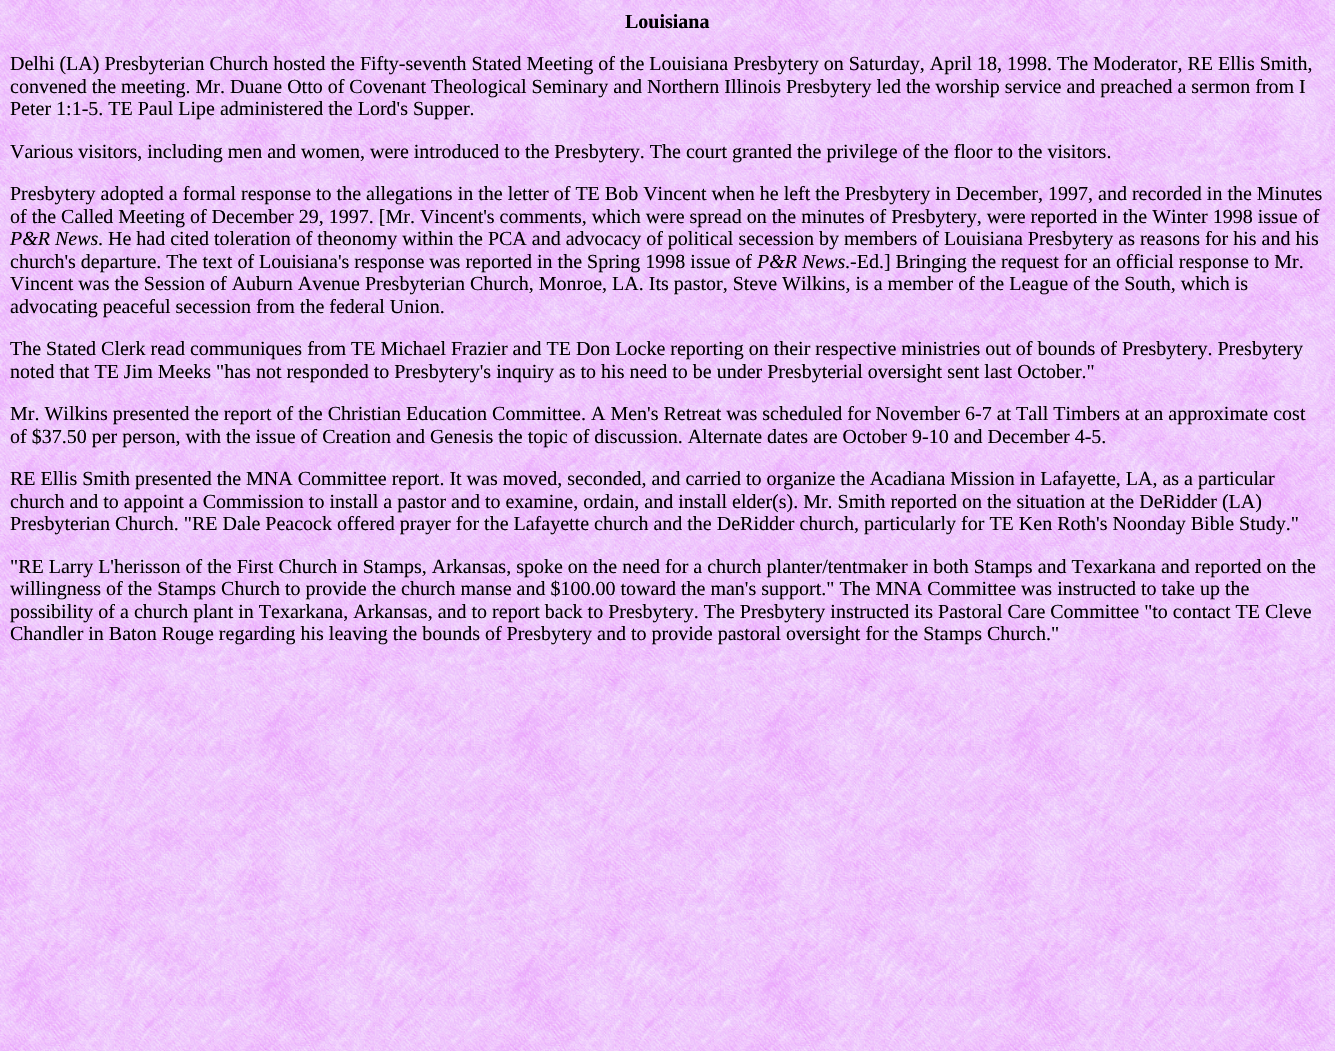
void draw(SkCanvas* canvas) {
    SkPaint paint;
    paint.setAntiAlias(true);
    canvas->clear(0xFFFFFFFF);
    canvas->drawImageRect(SkImages::DeferredFromEncodedData(SkData::MakeFromFileName("img1.png")), SkRect::MakeXYWH(0, 0, 1335, 1051), SkSamplingOptions());
    SkFont font1(fontMgr->matchFamilyStyle("Liberation Serif", SkFontStyle::Bold()), 20);
    font1.setSubpixel(true);
    paint.setColor(0xFF000000);
    canvas->drawString("Louisiana", 625, 28, font1, paint);
    SkFont font2(fontMgr->matchFamilyStyle("Liberation Serif", SkFontStyle::Normal()), 20);
    font2.setSubpixel(true);
    canvas->drawString("Delhi (LA) Presbyterian Church hosted the Fifty-seventh Stated Meeting of the Louisiana Presbytery on Saturday, April 18, 1998. The Moderator, RE Ellis Smith,", 10, 70, font2, paint);
    canvas->drawString("convened the meeting. Mr. Duane Otto of Covenant Theological Seminary and Northern Illinois Presbytery led the worship service and preached a sermon from I", 10, 93, font2, paint);
    canvas->drawString("Peter 1:1-5. TE Paul Lipe administered the Lord's Supper.", 10, 115, font2, paint);
    canvas->drawString("Various visitors, including men and women, were introduced to the Presbytery. The court granted the privilege of the floor to the visitors.", 10, 158, font2, paint);
    canvas->drawString("Presbytery adopted a formal response to the allegations in the letter of TE Bob Vincent when he left the Presbytery in December, 1997, and recorded in the Minutes", 10, 200, font2, paint);
    canvas->drawString("of the Called Meeting of December 29, 1997. [Mr. Vincent's comments, which were spread on the minutes of Presbytery, were reported in the Winter 1998 issue of", 10, 223, font2, paint);
    SkFont font3(fontMgr->matchFamilyStyle("Liberation Serif", SkFontStyle::Italic()), 20);
    font3.setSubpixel(true);
    canvas->drawString("P&R News", 10, 245, font3, paint);
    canvas->drawString(". He had cited toleration of theonomy within the PCA and advocacy of political secession by members of Louisiana Presbytery as reasons for his and his", 98, 245, font2, paint);
    canvas->drawString("church's departure. The text of Louisiana's response was reported in the Spring 1998 issue of", 10, 268, font2, paint);
    canvas->drawString("P&R News", 757, 268, font3, paint);
    canvas->drawString(".-Ed.] Bringing the request for an official response to Mr.", 845, 268, font2, paint);
    canvas->drawString("Vincent was the Session of Auburn Avenue Presbyterian Church, Monroe, LA. Its pastor, Steve Wilkins, is a member of the League of the South, which is", 10, 290, font2, paint);
    canvas->drawString("advocating peaceful secession from the federal Union.", 10, 313, font2, paint);
    canvas->drawString("The Stated Clerk read communiques from TE Michael Frazier and TE Don Locke reporting on their respective ministries out of bounds of Presbytery. Presbytery", 10, 355, font2, paint);
    canvas->drawString("noted that TE Jim Meeks \"has not responded to Presbytery's inquiry as to his need to be under Presbyterial oversight sent last October.\"", 10, 378, font2, paint);
    canvas->drawString("Mr. Wilkins presented the report of the Christian Education Committee. A Men's Retreat was scheduled for November 6-7 at Tall Timbers at an approximate cost", 10, 420, font2, paint);
    canvas->drawString("of $37.50 per person, with the issue of Creation and Genesis the topic of discussion. Alternate dates are October 9-10 and December 4-5.", 10, 443, font2, paint);
    canvas->drawString("RE Ellis Smith presented the MNA Committee report. It was moved, seconded, and carried to organize the Acadiana Mission in Lafayette, LA, as a particular", 10, 485, font2, paint);
    canvas->drawString("church and to appoint a Commission to install a pastor and to examine, ordain, and install elder(s). Mr. Smith reported on the situation at the DeRidder (LA)", 10, 508, font2, paint);
    canvas->drawString("Presbyterian Church. \"RE Dale Peacock offered prayer for the Lafayette church and the DeRidder church, particularly for TE Ken Roth's Noonday Bible Study.\"", 10, 530, font2, paint);
    canvas->drawString("\"RE Larry L'herisson of the First Church in Stamps, Arkansas, spoke on the need for a church planter/tentmaker in both Stamps and Texarkana and reported on the", 10, 573, font2, paint);
    canvas->drawString("willingness of the Stamps Church to provide the church manse and $100.00 toward the man's support.\" The MNA Committee was instructed to take up the", 10, 595, font2, paint);
    canvas->drawString("possibility of a church plant in Texarkana, Arkansas, and to report back to Presbytery. The Presbytery instructed its Pastoral Care Committee \"to contact TE Cleve", 10, 618, font2, paint);
    canvas->drawString("Chandler in Baton Rouge regarding his leaving the bounds of Presbytery and to provide pastoral oversight for the Stamps Church.\"", 10, 640, font2, paint);
}
